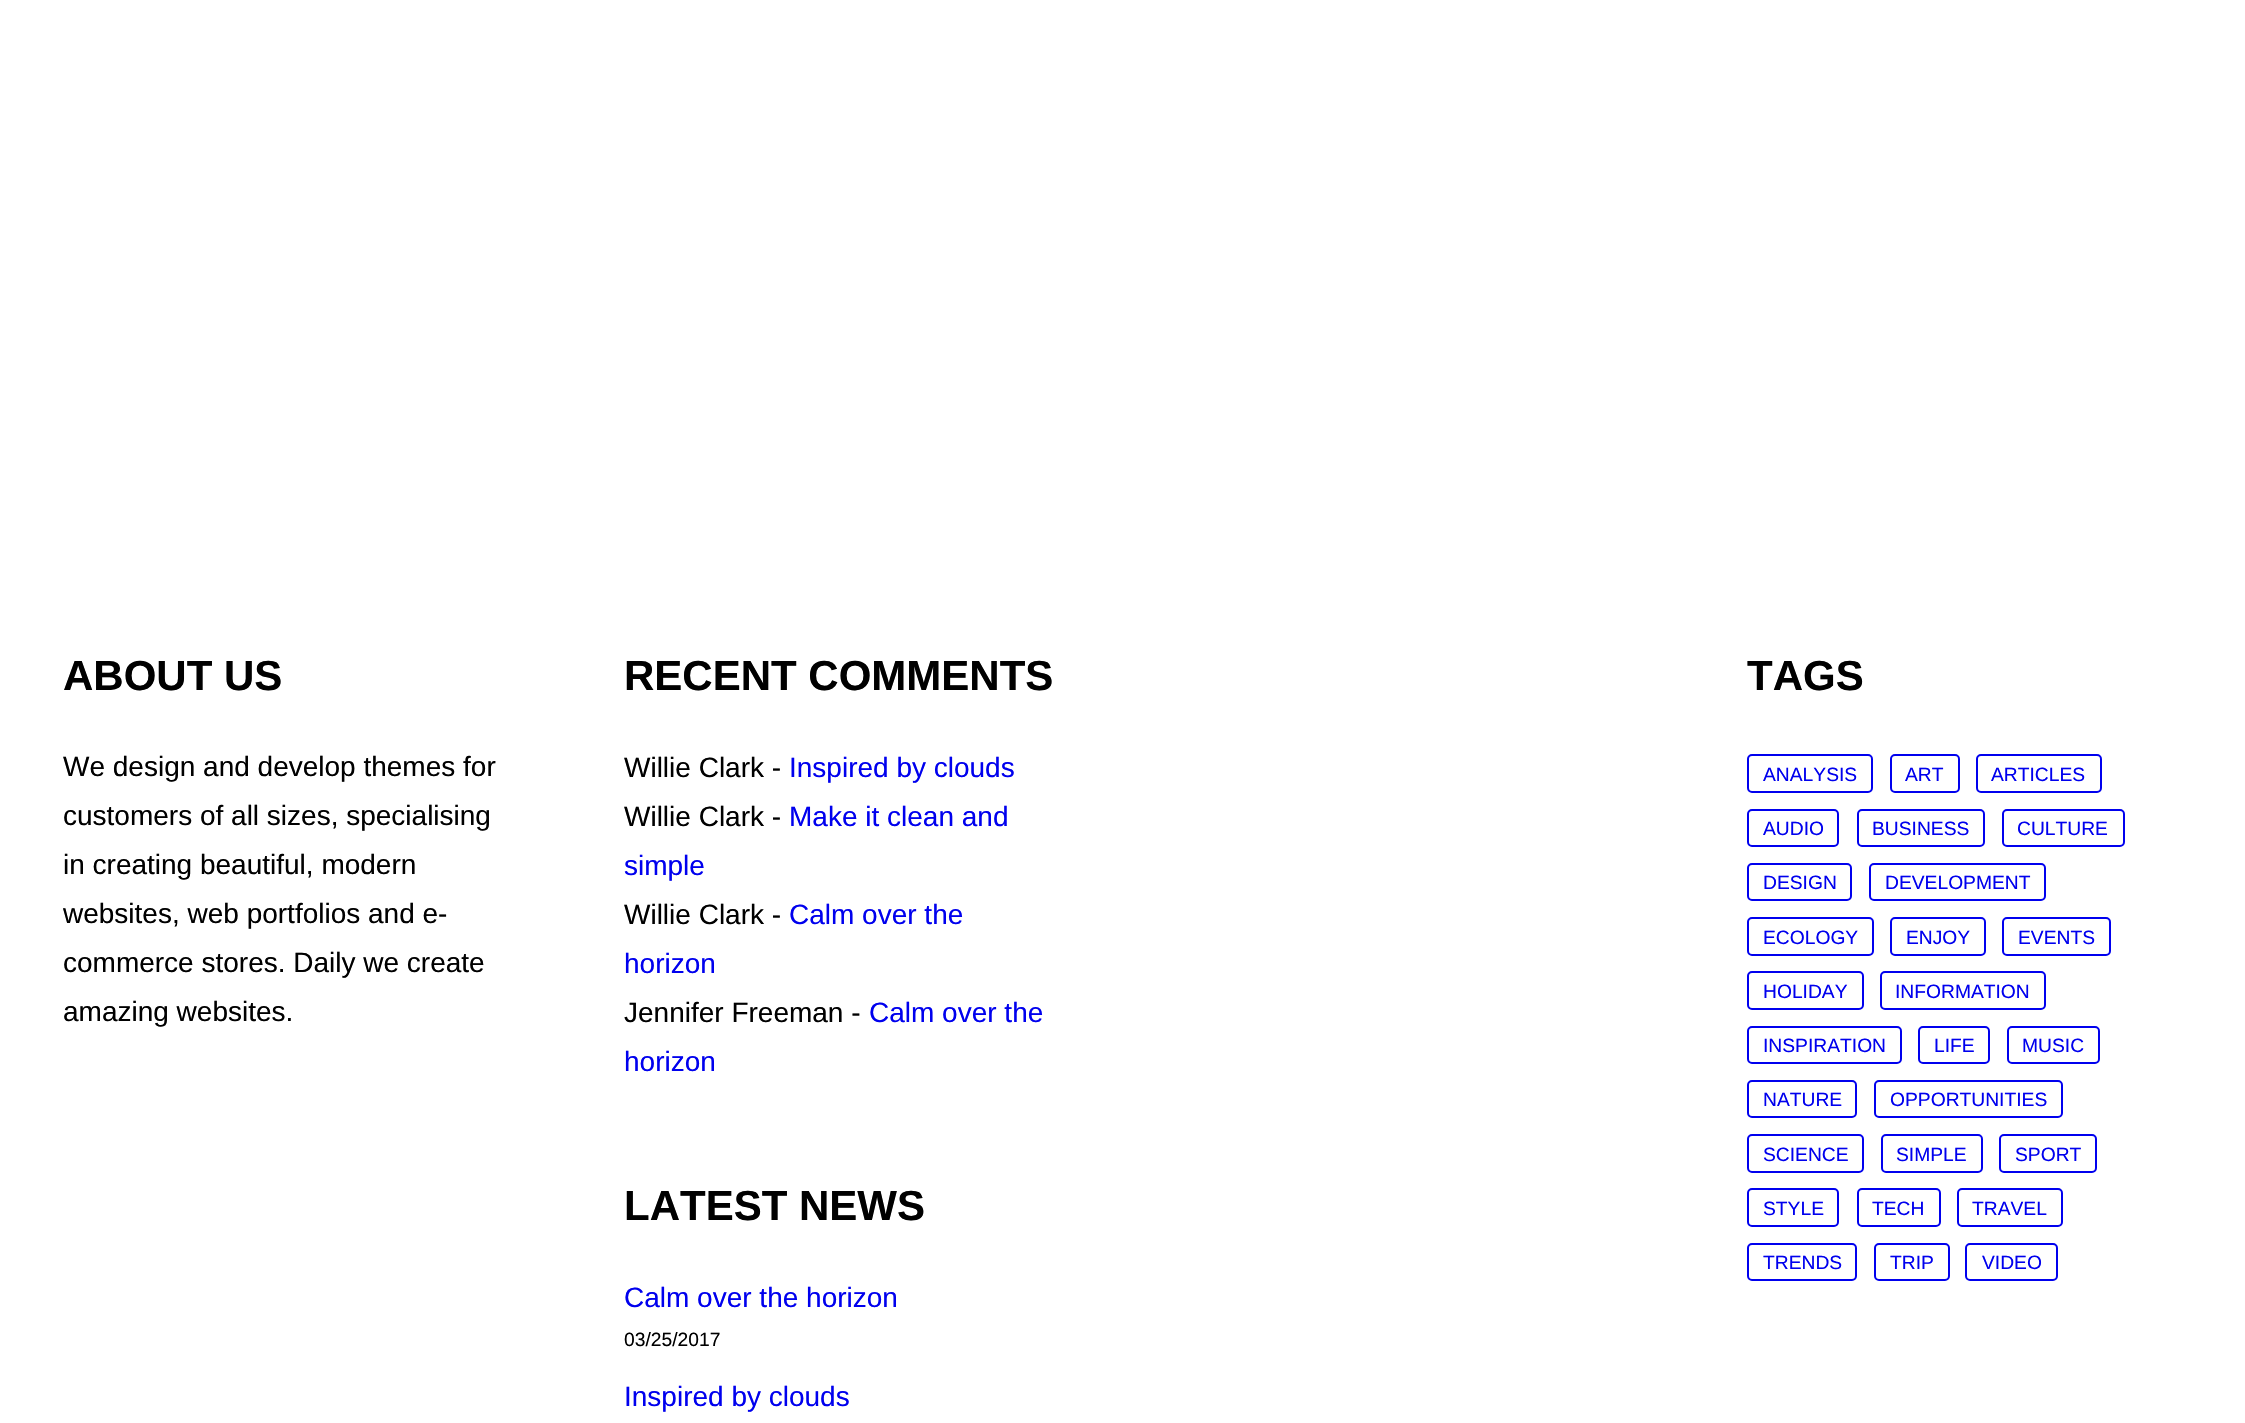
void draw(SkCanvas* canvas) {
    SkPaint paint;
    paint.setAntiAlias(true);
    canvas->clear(0xFFFFFFFF);
    SkFont font1(fontMgr->matchFamilyStyle("Liberation Sans", SkFontStyle::Bold()), 42);
    font1.setSubpixel(true);
    paint.setColor(0xFF000000);
    canvas->drawString("ABOUT US", 63, 690, font1, paint);
    SkFont font2(fontMgr->matchFamilyStyle("Liberation Sans", SkFontStyle::Normal()), 28);
    font2.setSubpixel(true);
    canvas->drawString("We design and develop themes for", 63, 776, font2, paint);
    canvas->drawString("customers of all sizes, specialising", 63, 825, font2, paint);
    canvas->drawString("in creating beautiful, modern", 63, 874, font2, paint);
    canvas->drawString("websites, web portfolios and e-", 63, 923, font2, paint);
    canvas->drawString("commerce stores. Daily we create", 63, 972, font2, paint);
    canvas->drawString("amazing websites.", 63, 1021, font2, paint);
    canvas->drawString("RECENT COMMENTS", 624, 690, font1, paint);
    canvas->drawString("Willie Clark -", 624, 777, font2, paint);
    paint.setColor(0xFF0000EE);
    canvas->drawString("Inspired by clouds", 789, 777, font2, paint);
    paint.setColor(0xFF000000);
    canvas->drawString("Willie Clark -", 624, 826, font2, paint);
    paint.setColor(0xFF0000EE);
    canvas->drawString("Make it clean and", 789, 826, font2, paint);
    canvas->drawString("simple", 624, 875, font2, paint);
    paint.setColor(0xFF000000);
    canvas->drawString("Willie Clark -", 624, 924, font2, paint);
    paint.setColor(0xFF0000EE);
    canvas->drawString("Calm over the", 789, 924, font2, paint);
    canvas->drawString("horizon", 624, 973, font2, paint);
    paint.setColor(0xFF000000);
    canvas->drawString("Jennifer Freeman -", 624, 1022, font2, paint);
    paint.setColor(0xFF0000EE);
    canvas->drawString("Calm over the", 869, 1022, font2, paint);
    canvas->drawString("horizon", 624, 1071, font2, paint);
    paint.setColor(0xFF000000);
    canvas->drawString("LATEST NEWS", 624, 1220, font1, paint);
    paint.setColor(0xFF0000EE);
    canvas->drawString("Calm over the horizon", 624, 1307, font2, paint);
    SkFont font3(fontMgr->matchFamilyStyle("Liberation Sans", SkFontStyle::Normal()), 19.25f);
    font3.setSubpixel(true);
    paint.setColor(0xFF000000);
    canvas->drawString("03/25/2017", 624, 1346, font3, paint);
    paint.setColor(0xFF0000EE);
    canvas->drawString("Inspired by clouds", 624, 1406, font2, paint);
    paint.setColor(0xFF000000);
    canvas->drawString("TAGS", 1747, 690, font1, paint);
    paint.setStyle(SkPaint::kStroke_Style);
    paint.setStrokeWidth(2);
    paint.setColor(0xFF0000EE);
    canvas->drawRoundRect(SkRect::MakeXYWH(1748, 755, 124, 37), 4, 4, paint);
    paint.setStyle(SkPaint::kFill_Style);
    canvas->drawString("ANALYSIS", 1763, 781, font3, paint);
    paint.setStyle(SkPaint::kStroke_Style);
    canvas->drawRoundRect(SkRect::MakeXYWH(1891, 755, 68, 37), 4, 4, paint);
    paint.setStyle(SkPaint::kFill_Style);
    canvas->drawString("ART", 1905, 781, font3, paint);
    paint.setStyle(SkPaint::kStroke_Style);
    canvas->drawRoundRect(SkRect::MakeXYWH(1977, 755, 124, 37), 4, 4, paint);
    paint.setStyle(SkPaint::kFill_Style);
    canvas->drawString("ARTICLES", 1991, 781, font3, paint);
    paint.setStyle(SkPaint::kStroke_Style);
    canvas->drawRoundRect(SkRect::MakeXYWH(1748, 810, 90, 36), 4, 4, paint);
    paint.setStyle(SkPaint::kFill_Style);
    canvas->drawString("AUDIO", 1763, 835, font3, paint);
    paint.setStyle(SkPaint::kStroke_Style);
    canvas->drawRoundRect(SkRect::MakeXYWH(1858, 810, 126, 36), 4, 4, paint);
    paint.setStyle(SkPaint::kFill_Style);
    canvas->drawString("BUSINESS", 1872, 835, font3, paint);
    paint.setStyle(SkPaint::kStroke_Style);
    canvas->drawRoundRect(SkRect::MakeXYWH(2003, 810, 121, 36), 4, 4, paint);
    paint.setStyle(SkPaint::kFill_Style);
    canvas->drawString("CULTURE", 2017, 835, font3, paint);
    paint.setStyle(SkPaint::kStroke_Style);
    canvas->drawRoundRect(SkRect::MakeXYWH(1748, 864, 103, 36), 4, 4, paint);
    paint.setStyle(SkPaint::kFill_Style);
    canvas->drawString("DESIGN", 1763, 889, font3, paint);
    paint.setStyle(SkPaint::kStroke_Style);
    canvas->drawRoundRect(SkRect::MakeXYWH(1870, 864, 175, 36), 4, 4, paint);
    paint.setStyle(SkPaint::kFill_Style);
    canvas->drawString("DEVELOPMENT", 1885, 889, font3, paint);
    paint.setStyle(SkPaint::kStroke_Style);
    canvas->drawRoundRect(SkRect::MakeXYWH(1748, 918, 125, 37), 4, 4, paint);
    paint.setStyle(SkPaint::kFill_Style);
    canvas->drawString("ECOLOGY", 1763, 944, font3, paint);
    paint.setStyle(SkPaint::kStroke_Style);
    canvas->drawRoundRect(SkRect::MakeXYWH(1891, 918, 94, 37), 4, 4, paint);
    paint.setStyle(SkPaint::kFill_Style);
    canvas->drawString("ENJOY", 1906, 944, font3, paint);
    paint.setStyle(SkPaint::kStroke_Style);
    canvas->drawRoundRect(SkRect::MakeXYWH(2003, 918, 107, 37), 4, 4, paint);
    paint.setStyle(SkPaint::kFill_Style);
    canvas->drawString("EVENTS", 2018, 944, font3, paint);
    paint.setStyle(SkPaint::kStroke_Style);
    canvas->drawRoundRect(SkRect::MakeXYWH(1748, 972, 115, 37), 4, 4, paint);
    paint.setStyle(SkPaint::kFill_Style);
    canvas->drawString("HOLIDAY", 1763, 998, font3, paint);
    paint.setStyle(SkPaint::kStroke_Style);
    canvas->drawRoundRect(SkRect::MakeXYWH(1881, 972, 164, 37), 4, 4, paint);
    paint.setStyle(SkPaint::kFill_Style);
    canvas->drawString("INFORMATION", 1895, 998, font3, paint);
    paint.setStyle(SkPaint::kStroke_Style);
    canvas->drawRoundRect(SkRect::MakeXYWH(1748, 1027, 153, 36), 4, 4, paint);
    paint.setStyle(SkPaint::kFill_Style);
    canvas->drawString("INSPIRATION", 1763, 1052, font3, paint);
    paint.setStyle(SkPaint::kStroke_Style);
    canvas->drawRoundRect(SkRect::MakeXYWH(1919, 1027, 70, 36), 4, 4, paint);
    paint.setStyle(SkPaint::kFill_Style);
    canvas->drawString("LIFE", 1934, 1052, font3, paint);
    paint.setStyle(SkPaint::kStroke_Style);
    canvas->drawRoundRect(SkRect::MakeXYWH(2008, 1027, 91, 36), 4, 4, paint);
    paint.setStyle(SkPaint::kFill_Style);
    canvas->drawString("MUSIC", 2022, 1052, font3, paint);
    paint.setStyle(SkPaint::kStroke_Style);
    canvas->drawRoundRect(SkRect::MakeXYWH(1748, 1081, 108, 36), 4, 4, paint);
    paint.setStyle(SkPaint::kFill_Style);
    canvas->drawString("NATURE", 1763, 1106, font3, paint);
    paint.setStyle(SkPaint::kStroke_Style);
    canvas->drawRoundRect(SkRect::MakeXYWH(1875, 1081, 187, 36), 4, 4, paint);
    paint.setStyle(SkPaint::kFill_Style);
    canvas->drawString("OPPORTUNITIES", 1890, 1106, font3, paint);
    paint.setStyle(SkPaint::kStroke_Style);
    canvas->drawRoundRect(SkRect::MakeXYWH(1748, 1135, 115, 37), 4, 4, paint);
    paint.setStyle(SkPaint::kFill_Style);
    canvas->drawString("SCIENCE", 1763, 1161, font3, paint);
    paint.setStyle(SkPaint::kStroke_Style);
    canvas->drawRoundRect(SkRect::MakeXYWH(1882, 1135, 100, 37), 4, 4, paint);
    paint.setStyle(SkPaint::kFill_Style);
    canvas->drawString("SIMPLE", 1896, 1161, font3, paint);
    paint.setStyle(SkPaint::kStroke_Style);
    canvas->drawRoundRect(SkRect::MakeXYWH(2000, 1135, 96, 37), 4, 4, paint);
    paint.setStyle(SkPaint::kFill_Style);
    canvas->drawString("SPORT", 2015, 1161, font3, paint);
    paint.setStyle(SkPaint::kStroke_Style);
    canvas->drawRoundRect(SkRect::MakeXYWH(1748, 1189, 90, 37), 4, 4, paint);
    paint.setStyle(SkPaint::kFill_Style);
    canvas->drawString("STYLE", 1763, 1215, font3, paint);
    paint.setStyle(SkPaint::kStroke_Style);
    canvas->drawRoundRect(SkRect::MakeXYWH(1858, 1189, 82, 37), 4, 4, paint);
    paint.setStyle(SkPaint::kFill_Style);
    canvas->drawString("TECH", 1872, 1215, font3, paint);
    paint.setStyle(SkPaint::kStroke_Style);
    canvas->drawRoundRect(SkRect::MakeXYWH(1958, 1189, 104, 37), 4, 4, paint);
    paint.setStyle(SkPaint::kFill_Style);
    canvas->drawString("TRAVEL", 1972, 1215, font3, paint);
    paint.setStyle(SkPaint::kStroke_Style);
    canvas->drawRoundRect(SkRect::MakeXYWH(1748, 1244, 108, 36), 4, 4, paint);
    paint.setStyle(SkPaint::kFill_Style);
    canvas->drawString("TRENDS", 1763, 1269, font3, paint);
    paint.setStyle(SkPaint::kStroke_Style);
    canvas->drawRoundRect(SkRect::MakeXYWH(1875, 1244, 74, 36), 4, 4, paint);
    paint.setStyle(SkPaint::kFill_Style);
    canvas->drawString("TRIP", 1890, 1269, font3, paint);
    paint.setStyle(SkPaint::kStroke_Style);
    canvas->drawRoundRect(SkRect::MakeXYWH(1966, 1244, 91, 36), 4, 4, paint);
    paint.setStyle(SkPaint::kFill_Style);
    canvas->drawString("VIDEO", 1982, 1269, font3, paint);
}
